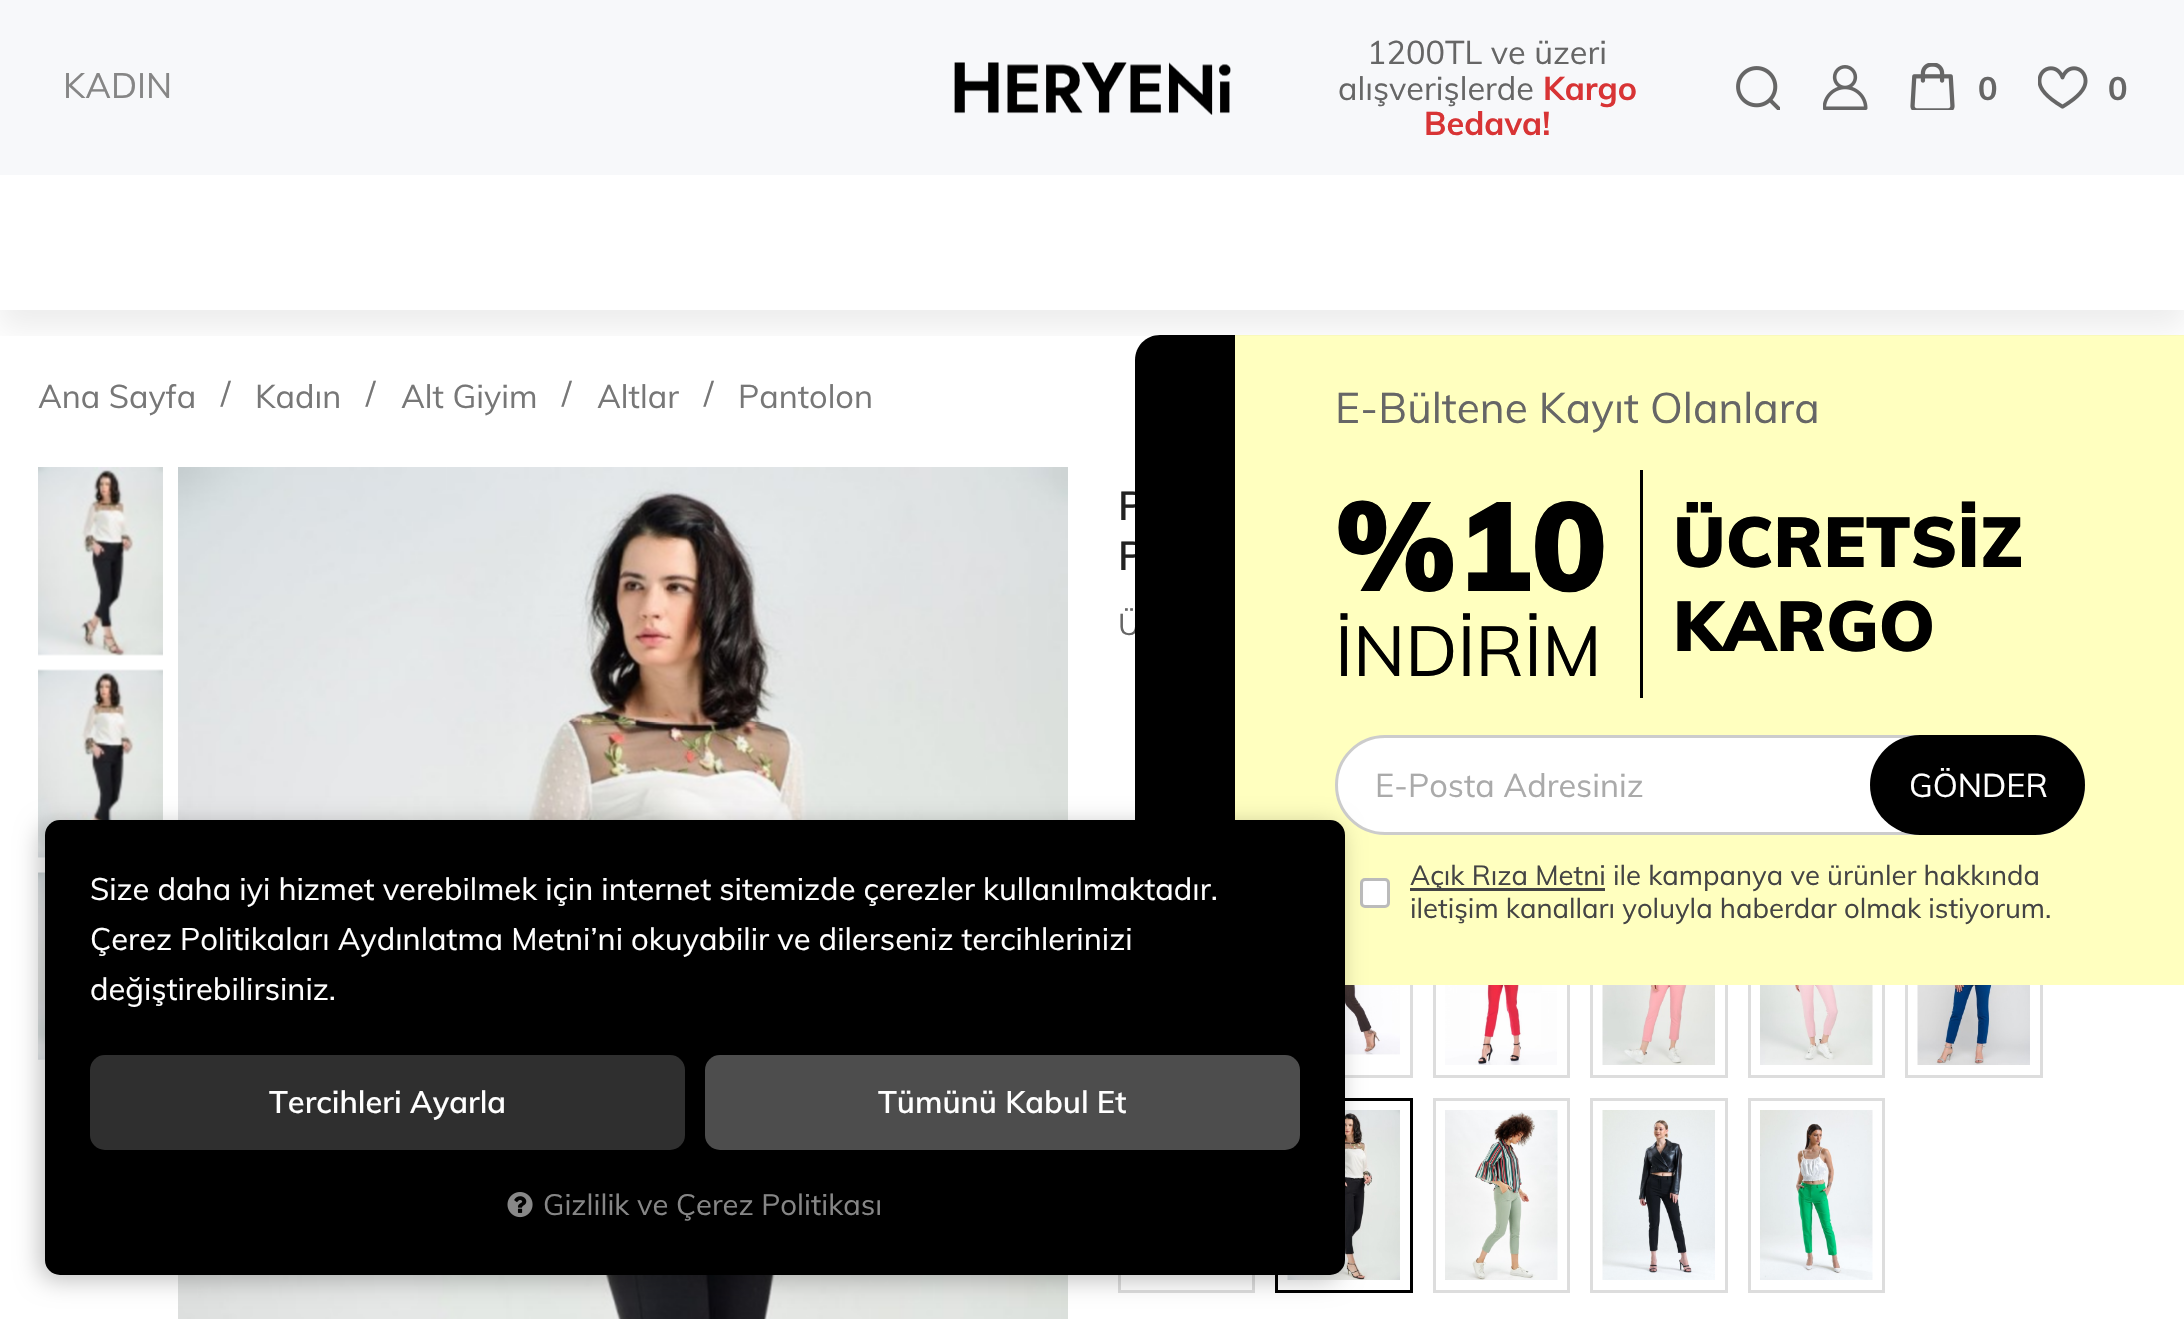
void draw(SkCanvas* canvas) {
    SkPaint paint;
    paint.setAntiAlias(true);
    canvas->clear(0xFFFFFFFF);
    paint.setColor(0xFFF7F8FA);
    canvas->drawRect(SkRect::MakeXYWH(0, 0, 2184, 175), paint);
    SkFont font1(fontMgr->matchFamilyStyle("Muli", SkFontStyle::Normal()), 35);
    font1.setSubpixel(true);
    paint.setColor(0xFF868686);
    canvas->drawString("KADIN", 63, 98, font1, paint);
    canvas->drawImageRect(SkImages::DeferredFromEncodedData(SkData::MakeFromFileName("img1.png")), SkRect::MakeXYWH(954, 62, 277, 53), SkSamplingOptions());
    SkFont font2(fontMgr->matchFamilyStyle("Muli", SkFontStyle::Normal()), 32.5f);
    font2.setSubpixel(true);
    paint.setColor(0xFF666666);
    canvas->drawString("1200TL ve üzeri", 1367, 64, font2, paint);
    canvas->drawString("alışverişlerde", 1338, 100, font2, paint);
    SkFont font3(fontMgr->matchFamilyStyle("Muli", SkFontStyle::Bold()), 32.5f);
    font3.setSubpixel(true);
    paint.setColor(0xFFD83435);
    canvas->drawString("Kargo", 1543, 100, font3, paint);
    canvas->drawString("Bedava!", 1424, 135, font3, paint);
    canvas->drawImageRect(SkImages::DeferredFromEncodedData(SkData::MakeFromFileName("img2.png")), SkRect::MakeXYWH(1736, 66, 44, 44), SkSamplingOptions());
    canvas->drawImageRect(SkImages::DeferredFromEncodedData(SkData::MakeFromFileName("img3.png")), SkRect::MakeXYWH(1823, 65, 45, 45), SkSamplingOptions());
    canvas->drawImageRect(SkImages::DeferredFromEncodedData(SkData::MakeFromFileName("img4.png")), SkRect::MakeXYWH(1910, 63, 45, 47), SkSamplingOptions());
    paint.setColor(0xFF666666);
    canvas->drawString("0", 1978, 100, font3, paint);
    canvas->drawImageRect(SkImages::DeferredFromEncodedData(SkData::MakeFromFileName("img5.png")), SkRect::MakeXYWH(2038, 66, 50, 43), SkSamplingOptions());
    canvas->drawString("0", 2108, 100, font3, paint);
    SkFont font4(fontMgr->matchFamilyStyle("Muli", SkFontStyle(600, SkFontStyle::kNormal_Width, SkFontStyle::kUpright_Slant)), 40);
    font4.setSubpixel(true);
    paint.setColor(0xFF222222);
    canvas->drawString("P", 1118, 520, font4, paint);
    canvas->drawString("P", 1118, 570, font4, paint);
    SkFont font5(fontMgr->matchFamilyStyle("Muli", SkFontStyle::Normal()), 30);
    font5.setSubpixel(true);
    paint.setColor(0xFF666666);
    canvas->drawString("Ü", 1118, 635, font5, paint);
    paint.setColor(0xFF000000);
    canvas->drawPath(SkPathBuilder().moveTo(1160, 335).lineTo(1235, 335).lineTo(1235, 985).lineTo(1160, 985).cubicTo(1146, 985, 1135, 974, 1135, 960).lineTo(1135, 360).cubicTo(1135, 346, 1146, 335, 1160, 335).close().detach(), paint);
    paint.setStyle(SkPaint::kStroke_Style);
    paint.setStrokeWidth(3);
    paint.setColor(0xFFDDDDDD);
    canvas->drawRect(SkRect::MakeXYWH(1276.5f, 886.5f, 135, 190), paint);
    canvas->drawRect(SkRect::MakeXYWH(1434.5f, 886.5f, 134, 190), paint);
    canvas->drawRect(SkRect::MakeXYWH(1591.5f, 886.5f, 135, 190), paint);
    canvas->drawRect(SkRect::MakeXYWH(1749.5f, 886.5f, 134, 190), paint);
    canvas->drawRect(SkRect::MakeXYWH(1906.5f, 886.5f, 135, 190), paint);
    paint.setStyle(SkPaint::kFill_Style);
    paint.setColor(0xFFFFFFBF);
    canvas->drawRect(SkRect::MakeXYWH(1235, 335, 949, 650), paint);
    canvas->save();
    canvas->clipRect(SkRect::MakeXYWH(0, 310, 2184, 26));
    paint.setColor(0x12000000);
    paint.setMaskFilter(SkMaskFilter::MakeBlur(kNormal_SkBlurStyle, 14));
    canvas->drawRect(SkRect::MakeXYWH(0, 193, 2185, 135), paint);
    paint.setMaskFilter(nullptr);
    canvas->restore();
    paint.setColor(0xFF777777);
    canvas->drawString("Ana Sayfa", 38, 408, font2, paint);
    canvas->drawString("/", 221, 405, font2, paint);
    canvas->drawString("Kadın", 255, 408, font2, paint);
    canvas->drawString("/", 366, 405, font2, paint);
    canvas->drawString("Alt Giyim", 401, 408, font2, paint);
    canvas->drawString("/", 562, 405, font2, paint);
    canvas->drawString("Altlar", 597, 408, font2, paint);
    canvas->drawString("/", 704, 405, font2, paint);
    canvas->drawString("Pantolon", 738, 408, font2, paint);
    canvas->drawImageRect(SkImages::DeferredFromEncodedData(SkData::MakeFromFileName("img6.png")), SkRect::MakeXYWH(38, 467, 125, 189), SkSamplingOptions());
    canvas->drawImageRect(SkImages::DeferredFromEncodedData(SkData::MakeFromFileName("img7.png")), SkRect::MakeXYWH(38, 669, 125, 189), SkSamplingOptions());
    canvas->drawImageRect(SkImages::DeferredFromEncodedData(SkData::MakeFromFileName("img8.png")), SkRect::MakeXYWH(38, 872, 7, 188), SkSamplingOptions());
    canvas->drawImageRect(SkImages::DeferredFromEncodedData(SkData::MakeFromFileName("img9.png")), SkRect::MakeXYWH(178, 467, 890, 852), SkSamplingOptions());
    canvas->drawImageRect(SkImages::DeferredFromEncodedData(SkData::MakeFromFileName("img10.png")), SkRect::MakeXYWH(1345, 985, 55, 70), SkSamplingOptions());
    canvas->drawImageRect(SkImages::DeferredFromEncodedData(SkData::MakeFromFileName("img11.png")), SkRect::MakeXYWH(1445, 985, 112, 80), SkSamplingOptions());
    canvas->drawImageRect(SkImages::DeferredFromEncodedData(SkData::MakeFromFileName("img12.png")), SkRect::MakeXYWH(1602, 985, 113, 80), SkSamplingOptions());
    canvas->drawImageRect(SkImages::DeferredFromEncodedData(SkData::MakeFromFileName("img13.png")), SkRect::MakeXYWH(1760, 985, 113, 80), SkSamplingOptions());
    canvas->drawImageRect(SkImages::DeferredFromEncodedData(SkData::MakeFromFileName("img14.png")), SkRect::MakeXYWH(1917, 985, 113, 80), SkSamplingOptions());
    paint.setStyle(SkPaint::kStroke_Style);
    paint.setColor(0xFFDDDDDD);
    canvas->drawRect(SkRect::MakeXYWH(1119.5f, 1099.5f, 134, 192), paint);
    paint.setColor(0xFF000000);
    canvas->drawRect(SkRect::MakeXYWH(1276.5f, 1099.5f, 135, 192), paint);
    canvas->drawImageRect(SkImages::DeferredFromEncodedData(SkData::MakeFromFileName("img15.png")), SkRect::MakeXYWH(1287, 1110, 113, 170), SkSamplingOptions());
    paint.setColor(0xFFDDDDDD);
    canvas->drawRect(SkRect::MakeXYWH(1434.5f, 1099.5f, 134, 192), paint);
    canvas->drawImageRect(SkImages::DeferredFromEncodedData(SkData::MakeFromFileName("img16.png")), SkRect::MakeXYWH(1445, 1110, 113, 170), SkSamplingOptions());
    canvas->drawRect(SkRect::MakeXYWH(1591.5f, 1099.5f, 135, 192), paint);
    canvas->drawImageRect(SkImages::DeferredFromEncodedData(SkData::MakeFromFileName("img17.png")), SkRect::MakeXYWH(1602, 1110, 113, 170), SkSamplingOptions());
    canvas->drawRect(SkRect::MakeXYWH(1749.5f, 1099.5f, 134, 192), paint);
    canvas->drawImageRect(SkImages::DeferredFromEncodedData(SkData::MakeFromFileName("img18.png")), SkRect::MakeXYWH(1760, 1110, 113, 170), SkSamplingOptions());
    SkFont font6(fontMgr->matchFamilyStyle("Muli", SkFontStyle::Normal()), 42.5f);
    font6.setSubpixel(true);
    paint.setStyle(SkPaint::kFill_Style);
    paint.setColor(0xFF666666);
    canvas->drawString("E-Bültene Kayıt Olanlara", 1335, 423, font6, paint);
    SkFont font7(fontMgr->matchFamilyStyle("Muli", SkFontStyle(900, SkFontStyle::kNormal_Width, SkFontStyle::kUpright_Slant)), 125);
    font7.setSubpixel(true);
    paint.setColor(0xFF000000);
    canvas->drawString("%10", 1335, 591, font7, paint);
    SkFont font8(fontMgr->matchFamilyStyle("Muli", SkFontStyle::Normal()), 70);
    font8.setSubpixel(true);
    canvas->drawString("İNDİRİM", 1335, 676, font8, paint);
    canvas->drawRect(SkRect::MakeXYWH(1640, 470, 3, 228), paint);
    SkFont font9(fontMgr->matchFamilyStyle("Muli", SkFontStyle(900, SkFontStyle::kNormal_Width, SkFontStyle::kUpright_Slant)), 70);
    font9.setSubpixel(true);
    canvas->drawString("ÜCRETSİZ", 1673, 567, font9, paint);
    canvas->drawString("KARGO", 1673, 651, font9, paint);
    paint.setColor(0xFFFFFFFF);
    canvas->drawRoundRect(SkRect::MakeXYWH(1336.5f, 736.5f, 747, 97), 48.5f, 48.5f, paint);
    paint.setStyle(SkPaint::kStroke_Style);
    paint.setColor(0xFFCCCCCC);
    canvas->drawRoundRect(SkRect::MakeXYWH(1336.5f, 736.5f, 747, 97), 48.5f, 48.5f, paint);
    paint.setStyle(SkPaint::kFill_Style);
    paint.setColor(0xFFAAAAAA);
    canvas->drawString("E-Posta Adresiniz", 1375, 797, font2, paint);
    paint.setColor(0xFF000000);
    canvas->drawRoundRect(SkRect::MakeXYWH(1870, 735, 215, 100), 50, 50, paint);
    paint.setColor(0xFFFFFFFF);
    canvas->drawString("GÖNDER", 1909, 797, font2, paint);
    canvas->drawRoundRect(SkRect::MakeXYWH(1361.5f, 879.5f, 27, 27), 3.5f, 3.5f, paint);
    paint.setStyle(SkPaint::kStroke_Style);
    paint.setColor(0xFFBBBBBB);
    canvas->drawRoundRect(SkRect::MakeXYWH(1361.5f, 879.5f, 27, 27), 3.5f, 3.5f, paint);
    paint.setStyle(SkPaint::kFill_Style);
    paint.setColor(0xFF444444);
    canvas->drawRect(SkRect::MakeXYWH(1410, 888, 195, 3), paint);
    SkFont font10(fontMgr->matchFamilyStyle("Muli", SkFontStyle::Normal()), 27.5f);
    font10.setSubpixel(true);
    canvas->drawString("Açık Rıza Metni ile kampanya ve ürünler hakkında", 1410, 885, font10, paint);
    canvas->drawString("iletişim kanalları yoluyla haberdar olmak istiyorum.", 1410, 918, font10, paint);
    paint.setColor(0x40000000);
    paint.setMaskFilter(SkMaskFilter::MakeBlur(kNormal_SkBlurStyle, 12.5f));
    canvas->drawRoundRect(SkRect::MakeXYWH(40, 825, 1300, 455), 15, 15, paint);
    paint.setMaskFilter(nullptr);
    paint.setColor(0xFF000000);
    canvas->drawRoundRect(SkRect::MakeXYWH(45, 820, 1300, 455), 15, 15, paint);
    SkFont font11(fontMgr->matchFamilyStyle("Muli", SkFontStyle::Normal()), 30.9f);
    font11.setSubpixel(true);
    paint.setColor(0xFFFFFFFF);
    canvas->drawString("Size daha iyi hizmet verebilmek için internet sitemizde çerezler kullanılmaktadır.", 90, 900, font11, paint);
    canvas->drawString("Çerez Politikaları Aydınlatma Metni’ni okuyabilir ve dilerseniz tercihlerinizi", 90, 950, font11, paint);
    canvas->drawString("değiştirebilirsiniz.", 90, 1000, font11, paint);
    paint.setColor(0xFF2F2F2F);
    canvas->drawRoundRect(SkRect::MakeXYWH(90, 1055, 595, 95), 15, 15, paint);
    SkFont font12(fontMgr->matchFamilyStyle("Muli", SkFontStyle(600, SkFontStyle::kNormal_Width, SkFontStyle::kUpright_Slant)), 30.9f);
    font12.setSubpixel(true);
    paint.setColor(0xFFFFFFFF);
    canvas->drawString("Tercihleri Ayarla", 269, 1113, font12, paint);
    paint.setColor(0xFF4D4D4D);
    canvas->drawRoundRect(SkRect::MakeXYWH(705, 1055, 595, 95), 15, 15, paint);
    paint.setColor(0xFFFFFFFF);
    canvas->drawString("Tümünü Kabul Et", 878, 1113, font12, paint);
    canvas->drawImageRect(SkImages::DeferredFromEncodedData(SkData::MakeFromFileName("img19.png")), SkRect::MakeXYWH(507, 1192, 26, 26), SkSamplingOptions());
    SkFont font13(fontMgr->matchFamilyStyle("Muli", SkFontStyle::Normal()), 29.25f);
    font13.setSubpixel(true);
    paint.setColor(0xFF868686);
    canvas->drawString("Gizlilik ve Çerez Politikası", 543, 1215, font13, paint);
}
